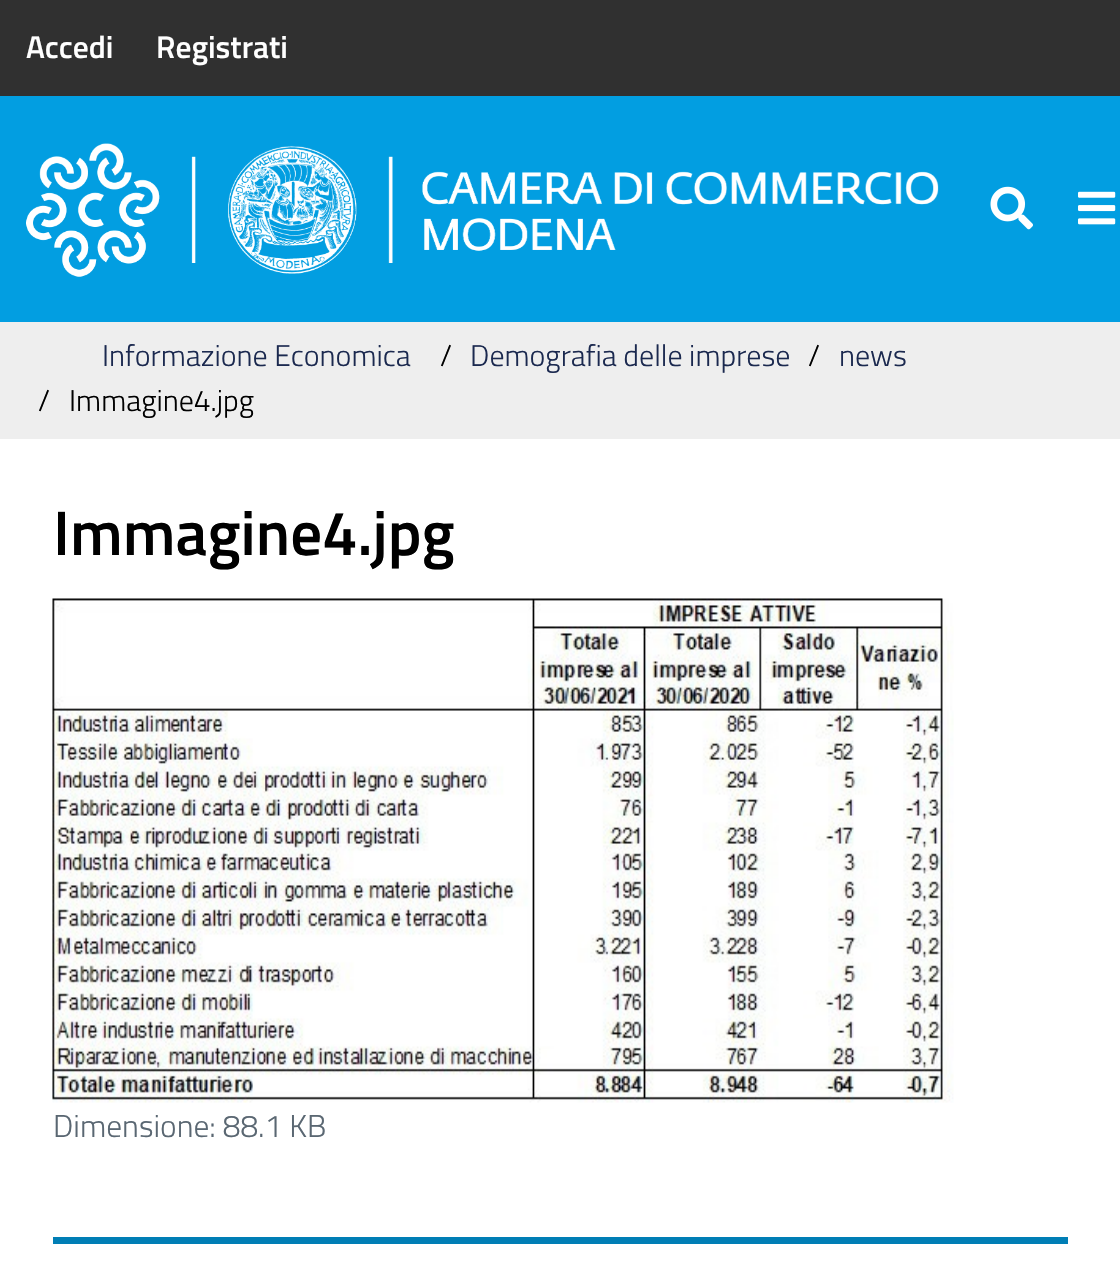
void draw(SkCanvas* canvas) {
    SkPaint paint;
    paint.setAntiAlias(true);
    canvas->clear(0xFFFFFFFF);
    paint.setColor(0xFF029EE1);
    canvas->drawRect(SkRect::MakeXYWH(0, 96, 1120, 226), paint);
    paint.setColor(0xFF303030);
    canvas->drawRect(SkRect::MakeXYWH(0, 0, 1120, 96), paint);
    SkFont font1(fontMgr->matchFamilyStyle("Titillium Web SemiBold", SkFontStyle(600, SkFontStyle::kNormal_Width, SkFontStyle::kUpright_Slant)), 31.5f);
    font1.setSubpixel(true);
    paint.setColor(0xFFFFFFFF);
    canvas->drawString("Accedi", 26, 58, font1, paint);
    canvas->drawString("Registrati", 156, 58, font1, paint);
    canvas->drawImageRect(SkImages::DeferredFromEncodedData(SkData::MakeFromFileName("img1.png")), SkRect::MakeXYWH(26, 143, 913, 134), SkSamplingOptions());
    canvas->drawImageRect(SkImages::DeferredFromEncodedData(SkData::MakeFromFileName("img2.png")), SkRect::MakeXYWH(990, 186, 43, 44), SkSamplingOptions());
    canvas->drawImageRect(SkImages::DeferredFromEncodedData(SkData::MakeFromFileName("img3.png")), SkRect::MakeXYWH(1078, 191, 38, 34), SkSamplingOptions());
    paint.setColor(0xFFEEEEEE);
    canvas->drawRect(SkRect::MakeXYWH(0, 322, 1120, 117), paint);
    SkFont font2(fontMgr->matchFamilyStyle("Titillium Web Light", SkFontStyle(300, SkFontStyle::kNormal_Width, SkFontStyle::kUpright_Slant)), 30);
    font2.setSubpixel(true);
    paint.setColor(0xFF1B294F);
    canvas->drawString("Informazione Economica", 102, 366, font2, paint);
    paint.setColor(0xFF000000);
    canvas->drawString("/", 440, 366, font2, paint);
    paint.setColor(0xFF1B294F);
    canvas->drawString("Demografia delle imprese", 470, 366, font2, paint);
    paint.setColor(0xFF000000);
    canvas->drawString("/", 808, 366, font2, paint);
    paint.setColor(0xFF1B294F);
    canvas->drawString("news", 839, 366, font2, paint);
    paint.setColor(0xFF000000);
    canvas->drawString("/", 38, 411, font2, paint);
    canvas->drawString("Immagine4.jpg", 69, 411, font2, paint);
    SkFont font3(fontMgr->matchFamilyStyle("Titillium Web SemiBold", SkFontStyle(600, SkFontStyle::kNormal_Width, SkFontStyle::kUpright_Slant)), 63);
    font3.setSubpixel(true);
    canvas->drawString("Immagine4.jpg", 53, 555, font3, paint);
    canvas->drawImageRect(SkImages::DeferredFromEncodedData(SkData::MakeFromFileName("img4.png")), SkRect::MakeXYWH(52, 598, 902, 505), SkSamplingOptions());
    SkFont font4(fontMgr->matchFamilyStyle("Titillium Web Light", SkFontStyle(300, SkFontStyle::kNormal_Width, SkFontStyle::kUpright_Slant)), 31.5f);
    font4.setSubpixel(true);
    paint.setColor(0xFF5A6772);
    canvas->drawString("Dimensione: 88.1 KB", 53, 1137, font4, paint);
    paint.setColor(0xFF007EB5);
    canvas->drawRect(SkRect::MakeXYWH(53, 1237, 1015, 7), paint);
}
